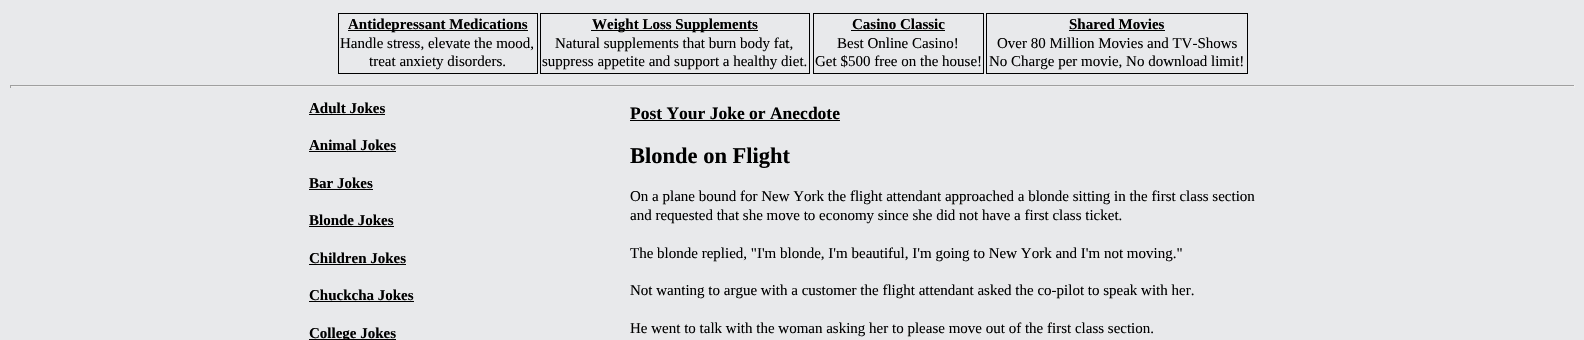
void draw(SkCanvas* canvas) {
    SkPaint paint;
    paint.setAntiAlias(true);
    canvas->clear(0xFFE8E9EB);
    paint.setStyle(SkPaint::kStroke_Style);
    paint.setStrokeWidth(1);
    paint.setColor(0xFF000000);
    canvas->drawRect(SkRect::MakeXYWH(338.5f, 13.5f, 199, 60), paint);
    paint.setStyle(SkPaint::kFill_Style);
    canvas->drawRect(SkRect::MakeXYWH(348, 30, 180, 1), paint);
    SkFont font1(fontMgr->matchFamilyStyle("Liberation Serif", SkFontStyle::Bold()), 15);
    font1.setSubpixel(true);
    canvas->drawString("Antidepressant Medications", 348, 29, font1, paint);
    SkFont font2(fontMgr->matchFamilyStyle("Liberation Serif", SkFontStyle::Normal()), 15);
    font2.setSubpixel(true);
    canvas->drawString("Handle stress, elevate the mood,", 340, 48, font2, paint);
    canvas->drawString("treat anxiety disorders.", 369, 66, font2, paint);
    paint.setStyle(SkPaint::kStroke_Style);
    canvas->drawRect(SkRect::MakeXYWH(540.5f, 13.5f, 269, 60), paint);
    paint.setStyle(SkPaint::kFill_Style);
    canvas->drawRect(SkRect::MakeXYWH(591, 30, 167, 1), paint);
    canvas->drawString("Weight Loss Supplements", 592, 29, font1, paint);
    canvas->drawString("Natural supplements that burn body fat,", 555, 48, font2, paint);
    canvas->drawString("suppress appetite and support a healthy diet.", 542, 66, font2, paint);
    paint.setStyle(SkPaint::kStroke_Style);
    canvas->drawRect(SkRect::MakeXYWH(813.5f, 13.5f, 170, 60), paint);
    paint.setStyle(SkPaint::kFill_Style);
    canvas->drawString("Casino Classic", 852, 29, font1, paint);
    canvas->drawRect(SkRect::MakeXYWH(851, 30, 94, 1), paint);
    canvas->drawString("Best Online Casino!", 837, 48, font2, paint);
    canvas->drawString("Get $500 free on the house!", 815, 66, font2, paint);
    paint.setStyle(SkPaint::kStroke_Style);
    canvas->drawRect(SkRect::MakeXYWH(986.5f, 13.5f, 261, 60), paint);
    paint.setStyle(SkPaint::kFill_Style);
    canvas->drawString("Shared Movies", 1069, 29, font1, paint);
    canvas->drawRect(SkRect::MakeXYWH(1069, 30, 96, 1), paint);
    canvas->drawString("Over 80 Million Movies and TV-Shows", 997, 48, font2, paint);
    canvas->drawString("No Charge per movie, No download limit!", 989, 66, font2, paint);
    paint.setColor(0xFF9F9F9F);
    canvas->drawRect(SkRect::MakeXYWH(10, 85, 1565, 1), paint);
    paint.setColor(0xFFEEEEEE);
    canvas->drawRect(SkRect::MakeXYWH(1574, 85, 1, 3), paint);
    canvas->drawRect(SkRect::MakeXYWH(10, 86, 1565, 1), paint);
    paint.setColor(0xFF9F9F9F);
    canvas->drawRect(SkRect::MakeXYWH(10, 85, 1, 3), paint);
    paint.setColor(0xFF000000);
    canvas->drawString("Adult Jokes", 309, 113, font1, paint);
    canvas->drawRect(SkRect::MakeXYWH(309, 114, 76, 1), paint);
    canvas->drawString("Animal Jokes", 309, 150, font1, paint);
    canvas->drawRect(SkRect::MakeXYWH(309, 151, 87, 1), paint);
    canvas->drawString("Bar Jokes", 309, 188, font1, paint);
    canvas->drawRect(SkRect::MakeXYWH(309, 189, 64, 1), paint);
    canvas->drawString("Blonde Jokes", 309, 225, font1, paint);
    canvas->drawRect(SkRect::MakeXYWH(309, 226, 85, 1), paint);
    canvas->drawString("Children Jokes", 309, 263, font1, paint);
    canvas->drawRect(SkRect::MakeXYWH(309, 264, 97, 1), paint);
    canvas->drawString("Chuckcha Jokes", 309, 300, font1, paint);
    canvas->drawRect(SkRect::MakeXYWH(309, 301, 105, 1), paint);
    canvas->drawRect(SkRect::MakeXYWH(309, 339, 87, 1), paint);
    canvas->drawString("College Jokes", 309, 338, font1, paint);
    SkFont font3(fontMgr->matchFamilyStyle("Liberation Serif", SkFontStyle::Bold()), 17.5f);
    font3.setSubpixel(true);
    canvas->drawString("Post Your Joke or Anecdote", 630, 119, font3, paint);
    canvas->drawRect(SkRect::MakeXYWH(630, 120, 210, 1), paint);
    SkFont font4(fontMgr->matchFamilyStyle("Liberation Serif", SkFontStyle::Bold()), 22.5f);
    font4.setSubpixel(true);
    canvas->drawString("Blonde on Flight", 630, 163, font4, paint);
    canvas->drawString("On a plane bound for New York the flight attendant approached a blonde sitting in the first class section", 630, 201, font2, paint);
    canvas->drawString("and requested that she move to economy since she did not have a first class ticket.", 630, 220, font2, paint);
    canvas->drawString("The blonde replied, \"I'm blonde, I'm beautiful, I'm going to New York and I'm not moving.\"", 630, 258, font2, paint);
    canvas->drawString("Not wanting to argue with a customer the flight attendant asked the co-pilot to speak with her.", 630, 295, font2, paint);
    canvas->drawString("He went to talk with the woman asking her to please move out of the first class section.", 630, 333, font2, paint);
}
